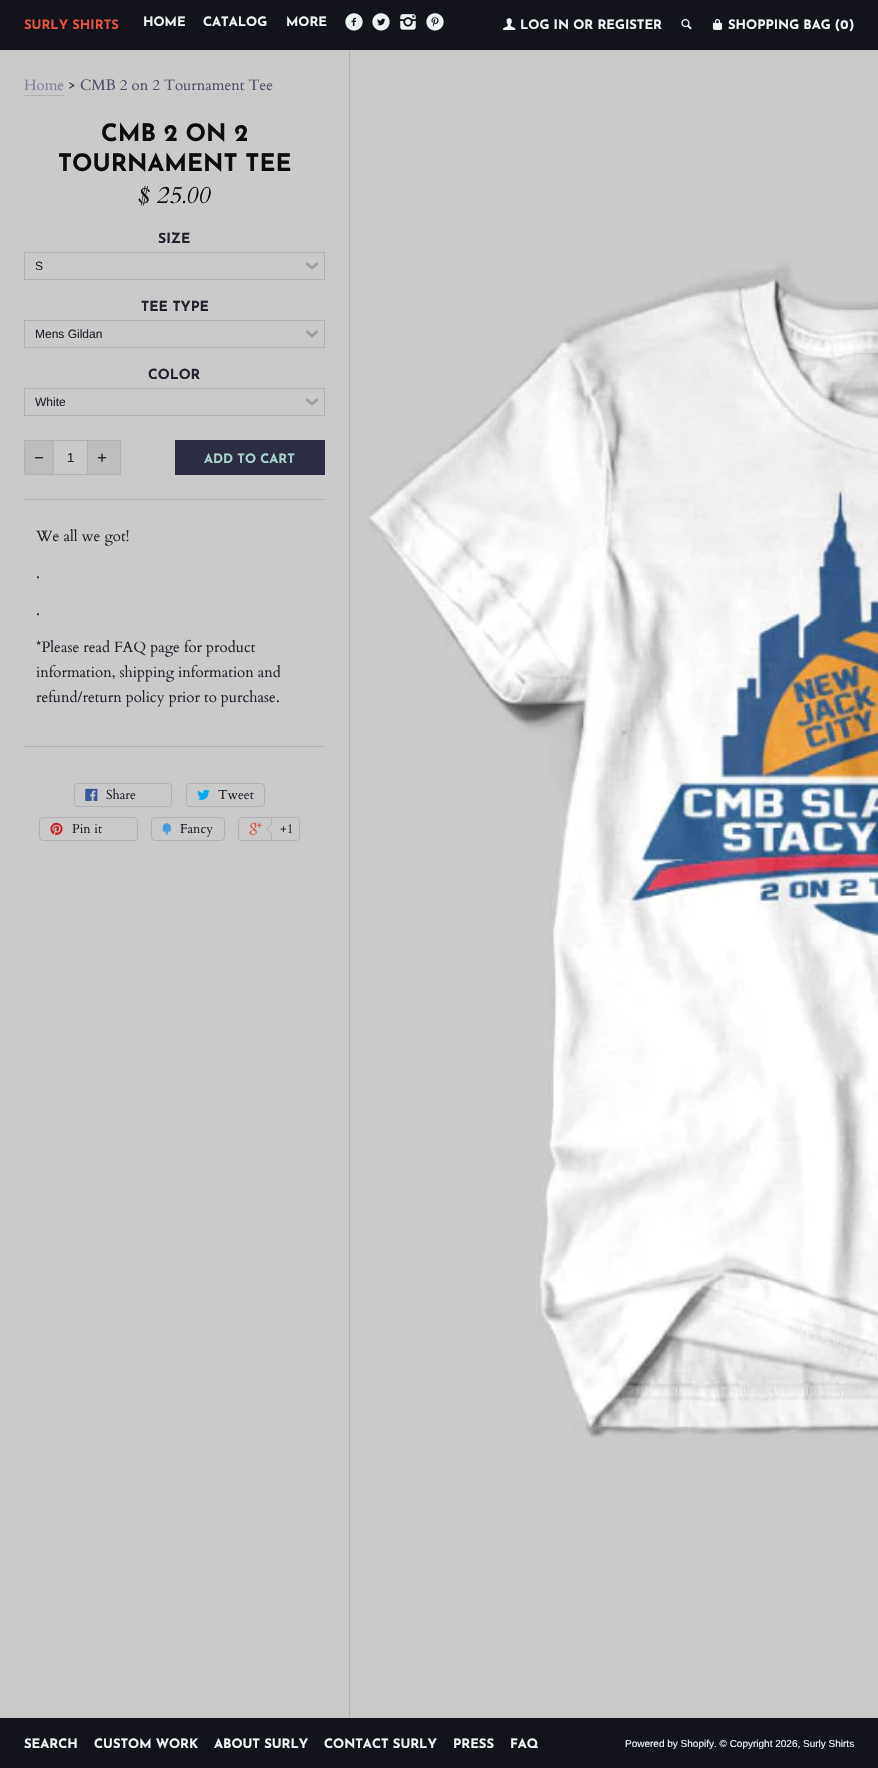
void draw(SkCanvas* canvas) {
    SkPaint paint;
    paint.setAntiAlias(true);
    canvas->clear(0xFFCACACA);
    paint.setColor(0xFF13131C);
    canvas->drawRect(SkRect::MakeXYWH(0, 0, 878, 50), paint);
    SkFont font1(fontMgr->matchFamilyStyle("Josefin Sans", SkFontStyle::Bold()), 13);
    font1.setSubpixel(true);
    paint.setColor(0xFFE95244);
    canvas->drawString("SURLY SHIRTS", 24, 29, font1, paint);
    paint.setColor(0xFFEDF5F4);
    canvas->drawString("HOME", 143, 26, font1, paint);
    canvas->drawString("CATALOG", 203, 26, font1, paint);
    canvas->drawString("MORE", 286, 26, font1, paint);
    canvas->drawImageRect(SkImages::DeferredFromEncodedData(SkData::MakeFromFileName("img1.png")), SkRect::MakeXYWH(345, 13, 18, 18), SkSamplingOptions());
    canvas->drawImageRect(SkImages::DeferredFromEncodedData(SkData::MakeFromFileName("img2.png")), SkRect::MakeXYWH(372, 13, 18, 18), SkSamplingOptions());
    canvas->drawImageRect(SkImages::DeferredFromEncodedData(SkData::MakeFromFileName("img3.png")), SkRect::MakeXYWH(400, 14, 16, 16), SkSamplingOptions());
    canvas->drawImageRect(SkImages::DeferredFromEncodedData(SkData::MakeFromFileName("img4.png")), SkRect::MakeXYWH(426, 13, 18, 18), SkSamplingOptions());
    canvas->drawImageRect(SkImages::DeferredFromEncodedData(SkData::MakeFromFileName("img5.png")), SkRect::MakeXYWH(503, 18, 13, 12), SkSamplingOptions());
    canvas->drawString("LOG IN OR REGISTER", 520, 29, font1, paint);
    canvas->drawImageRect(SkImages::DeferredFromEncodedData(SkData::MakeFromFileName("img6.png")), SkRect::MakeXYWH(681, 19, 11, 11), SkSamplingOptions());
    canvas->drawImageRect(SkImages::DeferredFromEncodedData(SkData::MakeFromFileName("img7.png")), SkRect::MakeXYWH(712, 19, 11, 11), SkSamplingOptions());
    canvas->drawString("SHOPPING BAG (0", 728, 29, font1, paint);
    canvas->drawString(")", 849, 29, font1, paint);
    paint.setColor(0xFFB1B1B1);
    canvas->drawRect(SkRect::MakeXYWH(349, 50, 1, 1668), paint);
    SkFont font2(fontMgr->matchFamilyStyle("Cardo", SkFontStyle::Normal()), 15);
    font2.setSubpixel(true);
    paint.setColor(0xFF7E7E9D);
    canvas->drawString("Home", 24, 90, font2, paint);
    paint.setColor(0xFFB1B1B1);
    canvas->drawRect(SkRect::MakeXYWH(24, 95, 40, 1), paint);
    paint.setColor(0xFF22222D);
    canvas->drawString(">", 68, 90, font2, paint);
    paint.setColor(0xFF4E4E67);
    canvas->drawString("CMB 2 on 2 Tournament Tee", 80, 90, font2, paint);
    SkFont font3(fontMgr->matchFamilyStyle("Josefin Sans", SkFontStyle::Bold()), 24);
    font3.setSubpixel(true);
    paint.setColor(0xFF0C0C0D);
    canvas->drawString("CMB 2 ON 2", 101, 141, font3, paint);
    canvas->drawString("TOURNAMENT TEE", 58, 171, font3, paint);
    SkFont font4(fontMgr->matchFamilyStyle("Cardo", SkFontStyle::Italic()), 24);
    font4.setSubpixel(true);
    canvas->drawString("$ 25.00", 138, 203, font4, paint);
    SkFont font5(fontMgr->matchFamilyStyle("Josefin Sans", SkFontStyle::Bold()), 14);
    font5.setSubpixel(true);
    paint.setColor(0xFF22222D);
    canvas->drawString("SIZE", 158, 243, font5, paint);
    canvas->drawImageRect(SkImages::DeferredFromEncodedData(SkData::MakeFromFileName("img8.png")), SkRect::MakeXYWH(306, 262, 12, 8), SkSamplingOptions());
    paint.setStyle(SkPaint::kStroke_Style);
    paint.setStrokeWidth(1);
    paint.setColor(0xFFB1B1B1);
    canvas->drawRect(SkRect::MakeXYWH(24.5f, 252.5f, 300, 27), paint);
    SkFont font6(fontMgr->matchFamilyStyle("Liberation Sans", SkFontStyle::Normal()), 12);
    font6.setSubpixel(true);
    paint.setStyle(SkPaint::kFill_Style);
    paint.setColor(0xFF22222D);
    canvas->drawString("S", 35, 270, font6, paint);
    canvas->drawString("TEE TYPE", 141, 311, font5, paint);
    canvas->drawImageRect(SkImages::DeferredFromEncodedData(SkData::MakeFromFileName("img8.png")), SkRect::MakeXYWH(306, 330, 12, 8), SkSamplingOptions());
    paint.setStyle(SkPaint::kStroke_Style);
    paint.setColor(0xFFB1B1B1);
    canvas->drawRect(SkRect::MakeXYWH(24.5f, 320.5f, 300, 27), paint);
    paint.setStyle(SkPaint::kFill_Style);
    paint.setColor(0xFF22222D);
    canvas->drawString("Mens Gildan", 35, 338, font6, paint);
    canvas->drawString("COLOR", 148, 379, font5, paint);
    canvas->drawImageRect(SkImages::DeferredFromEncodedData(SkData::MakeFromFileName("img8.png")), SkRect::MakeXYWH(306, 398, 12, 8), SkSamplingOptions());
    paint.setStyle(SkPaint::kStroke_Style);
    paint.setColor(0xFFB1B1B1);
    canvas->drawRect(SkRect::MakeXYWH(24.5f, 388.5f, 300, 27), paint);
    paint.setStyle(SkPaint::kFill_Style);
    paint.setColor(0xFF22222D);
    canvas->drawString("White", 35, 406, font6, paint);
    paint.setColor(0xFFBDBDBD);
    canvas->drawRect(SkRect::MakeXYWH(24.5f, 440.5f, 96, 34), paint);
    paint.setStyle(SkPaint::kStroke_Style);
    paint.setColor(0xFFB1B1B1);
    canvas->drawRect(SkRect::MakeXYWH(24.5f, 440.5f, 96, 34), paint);
    canvas->drawImageRect(SkImages::DeferredFromEncodedData(SkData::MakeFromFileName("img9.png")), SkRect::MakeXYWH(34, 457, 10, 2), SkSamplingOptions());
    paint.setStyle(SkPaint::kFill_Style);
    paint.setColor(0xFFCACACA);
    canvas->drawRect(SkRect::MakeXYWH(54, 441, 33, 33), paint);
    paint.setColor(0xFFB1B1B1);
    canvas->drawRect(SkRect::MakeXYWH(87, 441, 1, 33), paint);
    canvas->drawRect(SkRect::MakeXYWH(53, 441, 1, 33), paint);
    SkFont font7(fontMgr->matchFamilyStyle("Liberation Sans", SkFontStyle::Normal()), 13);
    font7.setSubpixel(true);
    paint.setColor(0xFF22222D);
    canvas->drawString("1", 67, 462, font7, paint);
    canvas->drawImageRect(SkImages::DeferredFromEncodedData(SkData::MakeFromFileName("img10.png")), SkRect::MakeXYWH(97, 453, 10, 9), SkSamplingOptions());
    paint.setColor(0xFF2C2C42);
    canvas->drawRect(SkRect::MakeXYWH(175, 440, 150, 35), paint);
    paint.setColor(0xFFA7D3CA);
    canvas->drawString("ADD TO CART", 204, 463, font1, paint);
    paint.setColor(0xFFB1B1B1);
    canvas->drawRect(SkRect::MakeXYWH(24, 499, 301, 1), paint);
    canvas->drawRect(SkRect::MakeXYWH(24, 746, 301, 1), paint);
    paint.setColor(0xFF22222D);
    canvas->drawString("We all we got!", 36, 541, font2, paint);
    canvas->drawString(".", 36, 578, font2, paint);
    canvas->drawString(".", 36, 615, font2, paint);
    canvas->drawString("*Please read FAQ page for product", 36, 652, font2, paint);
    canvas->drawString("information, shipping information and", 36, 677, font2, paint);
    canvas->drawString("refund/return policy prior to purchase.", 36, 702, font2, paint);
    paint.setStyle(SkPaint::kStroke_Style);
    paint.setColor(0xFFB1B1B1);
    canvas->drawRoundRect(SkRect::MakeXYWH(74.5f, 783.5f, 97, 23), 3.5f, 3.5f, paint);
    canvas->drawImageRect(SkImages::DeferredFromEncodedData(SkData::MakeFromFileName("img11.png")), SkRect::MakeXYWH(85, 788, 13, 13), SkSamplingOptions());
    SkFont font8(fontMgr->matchFamilyStyle("Cardo", SkFontStyle::Normal()), 13);
    font8.setSubpixel(true);
    paint.setStyle(SkPaint::kFill_Style);
    paint.setColor(0xFF22222D);
    canvas->drawString("Share", 106, 799, font8, paint);
    paint.setStyle(SkPaint::kStroke_Style);
    paint.setColor(0xFFB1B1B1);
    canvas->drawRoundRect(SkRect::MakeXYWH(186.5f, 783.5f, 78, 23), 3.5f, 3.5f, paint);
    canvas->drawImageRect(SkImages::DeferredFromEncodedData(SkData::MakeFromFileName("img12.png")), SkRect::MakeXYWH(197, 789, 13, 11), SkSamplingOptions());
    paint.setStyle(SkPaint::kFill_Style);
    paint.setColor(0xFF22222D);
    canvas->drawString("Tweet", 218, 799, font8, paint);
    paint.setStyle(SkPaint::kStroke_Style);
    paint.setColor(0xFFB1B1B1);
    canvas->drawRoundRect(SkRect::MakeXYWH(39.5f, 817.5f, 98, 23), 3.5f, 3.5f, paint);
    canvas->drawImageRect(SkImages::DeferredFromEncodedData(SkData::MakeFromFileName("img13.png")), SkRect::MakeXYWH(50, 822, 13, 13), SkSamplingOptions());
    paint.setStyle(SkPaint::kFill_Style);
    paint.setColor(0xFF22222D);
    canvas->drawString("Pin it", 72, 833, font8, paint);
    paint.setStyle(SkPaint::kStroke_Style);
    paint.setColor(0xFFB1B1B1);
    canvas->drawRoundRect(SkRect::MakeXYWH(151.5f, 817.5f, 73, 23), 3.5f, 3.5f, paint);
    canvas->drawImageRect(SkImages::DeferredFromEncodedData(SkData::MakeFromFileName("img14.png")), SkRect::MakeXYWH(162, 823, 9, 12), SkSamplingOptions());
    paint.setStyle(SkPaint::kFill_Style);
    paint.setColor(0xFF22222D);
    canvas->drawString("Fancy", 180, 833, font8, paint);
    paint.setStyle(SkPaint::kStroke_Style);
    paint.setColor(0xFFB1B1B1);
    canvas->drawRoundRect(SkRect::MakeXYWH(238.5f, 817.5f, 61, 23), 3.5f, 3.5f, paint);
    canvas->drawImageRect(SkImages::DeferredFromEncodedData(SkData::MakeFromFileName("img15.png")), SkRect::MakeXYWH(249, 822, 13, 13), SkSamplingOptions());
    paint.setStyle(SkPaint::kFill_Style);
    canvas->drawRect(SkRect::MakeXYWH(271, 818, 1, 22), paint);
    canvas->drawPath(SkPathBuilder().moveTo(272, 823).lineTo(272, 835).lineTo(266, 829).close().detach(), paint);
    paint.setColor(0xFFCACACA);
    canvas->drawPath(SkPathBuilder().moveTo(273, 823).lineTo(273, 835).lineTo(267, 829).close().detach(), paint);
    paint.setColor(0xFF22222D);
    canvas->drawString("+1", 280, 833, font8, paint);
    canvas->drawImageRect(SkImages::DeferredFromEncodedData(SkData::MakeFromFileName("img16.png")), SkRect::MakeXYWH(368, 262, 510, 1176), SkSamplingOptions());
    paint.setColor(0xFF13131C);
    canvas->drawRect(SkRect::MakeXYWH(0, 1718, 878, 50), paint);
    paint.setColor(0xFFEDF5F4);
    canvas->drawString("SEARCH", 24, 1748, font1, paint);
    canvas->drawString("CUSTOM WORK", 94, 1748, font1, paint);
    canvas->drawString("ABOUT SURLY", 214, 1748, font1, paint);
    canvas->drawString("CONTACT SURLY", 324, 1748, font1, paint);
    canvas->drawString("PRESS", 453, 1748, font1, paint);
    canvas->drawString("FAQ", 510, 1748, font1, paint);
    SkFont font9(fontMgr->matchFamilyStyle("Liberation Sans", SkFontStyle::Normal()), 10);
    font9.setSubpixel(true);
    canvas->drawString("Powered by Shopify. © Copyright 2026, Surly Shirts", 625, 1747, font9, paint);
}
